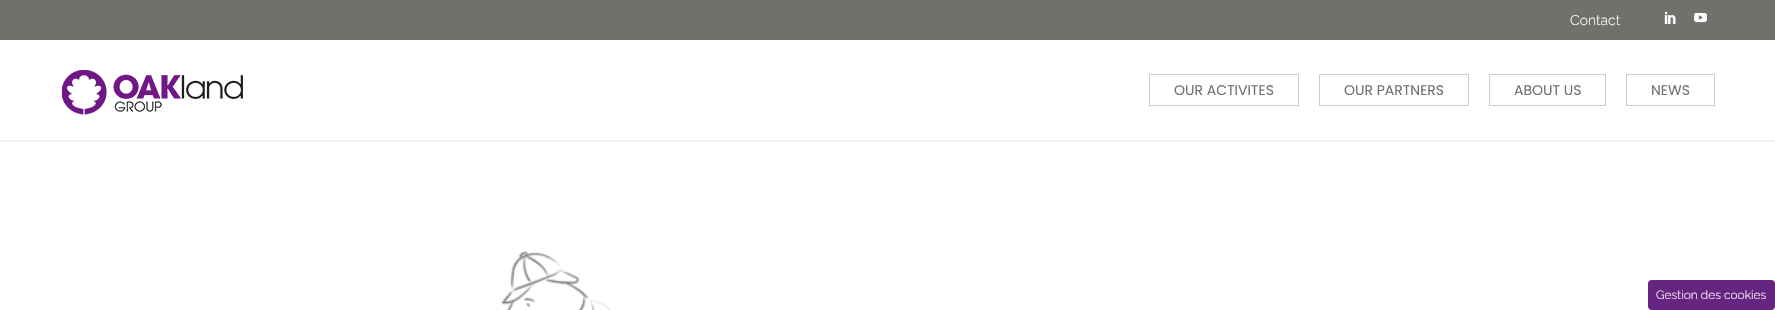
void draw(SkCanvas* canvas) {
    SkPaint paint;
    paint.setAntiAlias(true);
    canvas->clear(0xFFFFFFFF);
    paint.setColor(0xFF72706C);
    canvas->drawRect(SkRect::MakeXYWH(0, 0, 1775, 40), paint);
    SkFont font1(fontMgr->matchFamilyStyle("Raleway", SkFontStyle(300, SkFontStyle::kNormal_Width, SkFontStyle::kUpright_Slant)), 14);
    font1.setSubpixel(true);
    paint.setColor(0xFFFFFFFF);
    canvas->drawString("Contact", 1570, 25, font1, paint);
    canvas->drawImageRect(SkImages::DeferredFromEncodedData(SkData::MakeFromFileName("img1.png")), SkRect::MakeXYWH(1664, 11, 12, 13), SkSamplingOptions());
    canvas->drawImageRect(SkImages::DeferredFromEncodedData(SkData::MakeFromFileName("img2.png")), SkRect::MakeXYWH(1694, 12, 13, 11), SkSamplingOptions());
    canvas->drawImageRect(SkImages::DeferredFromEncodedData(SkData::MakeFromFileName("img3.png")), SkRect::MakeXYWH(62, 70, 181, 45), SkSamplingOptions());
    paint.setStyle(SkPaint::kStroke_Style);
    paint.setStrokeWidth(1);
    paint.setColor(0xFFCCCCCC);
    canvas->drawRect(SkRect::MakeXYWH(1149.5f, 74.5f, 149, 31), paint);
    SkFont font2(fontMgr->matchFamilyStyle("Poppins", SkFontStyle::Normal()), 14);
    font2.setSubpixel(true);
    paint.setStyle(SkPaint::kFill_Style);
    paint.setColor(0xFF72706C);
    canvas->drawString("OUR ACTIVITES", 1174, 95, font2, paint);
    paint.setStyle(SkPaint::kStroke_Style);
    paint.setColor(0xFFCCCCCC);
    canvas->drawRect(SkRect::MakeXYWH(1319.5f, 74.5f, 149, 31), paint);
    paint.setStyle(SkPaint::kFill_Style);
    paint.setColor(0xFF72706C);
    canvas->drawString("OUR PARTNERS", 1344, 95, font2, paint);
    paint.setStyle(SkPaint::kStroke_Style);
    paint.setColor(0xFFCCCCCC);
    canvas->drawRect(SkRect::MakeXYWH(1489.5f, 74.5f, 116, 31), paint);
    paint.setStyle(SkPaint::kFill_Style);
    paint.setColor(0xFF72706C);
    canvas->drawString("ABOUT US", 1514, 95, font2, paint);
    paint.setStyle(SkPaint::kStroke_Style);
    paint.setColor(0xFFCCCCCC);
    canvas->drawRect(SkRect::MakeXYWH(1626.5f, 74.5f, 88, 31), paint);
    paint.setStyle(SkPaint::kFill_Style);
    paint.setColor(0xFF72706C);
    canvas->drawString("NEWS", 1651, 95, font2, paint);
    paint.setColor(0xFFF1F2F2);
    canvas->drawRect(SkRect::MakeXYWH(0, 140, 1775, 2), paint);
    canvas->drawImageRect(SkImages::DeferredFromEncodedData(SkData::MakeFromFileName("img4.png")), SkRect::MakeXYWH(500, 250, 111, 60), SkSamplingOptions());
    paint.setColor(0xFF662581);
    canvas->drawRoundRect(SkRect::MakeXYWH(1648, 280, 127, 30), 4, 4, paint);
    SkFont font3(fontMgr->matchFamilyStyle("Raleway", SkFontStyle(300, SkFontStyle::kNormal_Width, SkFontStyle::kUpright_Slant)), 12);
    font3.setSubpixel(true);
    paint.setColor(0xFFFFFFFF);
    canvas->drawString("Gestion des cookies", 1656, 299, font3, paint);
}
